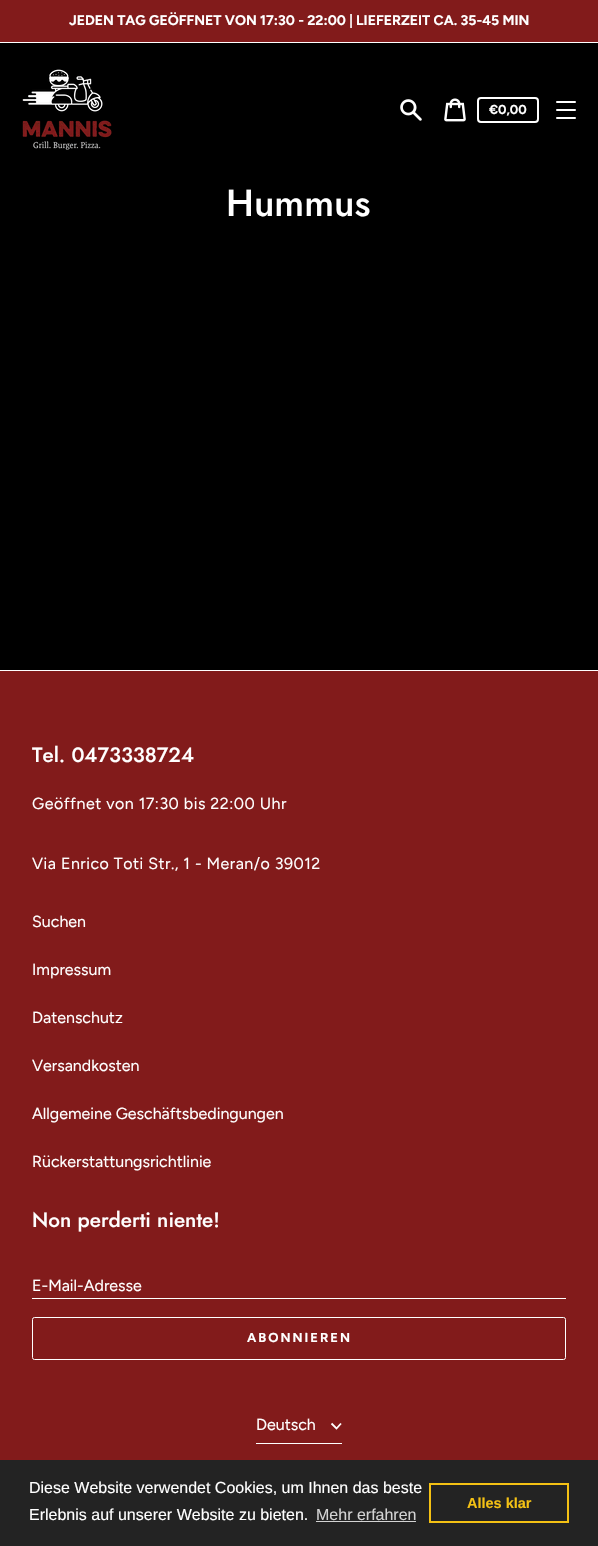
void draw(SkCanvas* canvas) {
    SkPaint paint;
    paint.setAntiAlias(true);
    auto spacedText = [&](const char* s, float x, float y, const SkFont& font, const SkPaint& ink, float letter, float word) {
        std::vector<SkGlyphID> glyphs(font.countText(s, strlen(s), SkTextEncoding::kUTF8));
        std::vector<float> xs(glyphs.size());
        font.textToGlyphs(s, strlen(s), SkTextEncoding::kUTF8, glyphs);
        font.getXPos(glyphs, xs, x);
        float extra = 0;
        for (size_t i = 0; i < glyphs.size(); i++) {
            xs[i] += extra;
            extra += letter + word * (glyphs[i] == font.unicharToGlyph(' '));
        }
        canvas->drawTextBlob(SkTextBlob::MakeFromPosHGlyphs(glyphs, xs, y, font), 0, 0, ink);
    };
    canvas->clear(0xFF000000);
    paint.setColor(0xFF821B1B);
    canvas->drawRect(SkRect::MakeXYWH(0, 0, 598, 42), paint);
    paint.setColor(0xFFFFFFFF);
    canvas->drawRect(SkRect::MakeXYWH(0, 42, 598, 1), paint);
    SkFont font1(fontMgr->matchFamilyStyle("Figtree", SkFontStyle::Bold()), 14);
    font1.setSubpixel(true);
    canvas->drawString("JEDEN TAG GEÖFFNET VON 17:30 - 22:00 | LIEFERZEIT CA. 35-45 MIN", 69, 25, font1, paint);
    canvas->drawImageRect(SkImages::DeferredFromEncodedData(SkData::MakeFromFileName("img1.png")), SkRect::MakeXYWH(22, 69, 90, 81), SkSamplingOptions());
    canvas->drawImageRect(SkImages::DeferredFromEncodedData(SkData::MakeFromFileName("img2.png")), SkRect::MakeXYWH(400, 99, 22, 22), SkSamplingOptions());
    canvas->drawImageRect(SkImages::DeferredFromEncodedData(SkData::MakeFromFileName("img3.png")), SkRect::MakeXYWH(444, 98, 22, 24), SkSamplingOptions());
    paint.setStyle(SkPaint::kStroke_Style);
    paint.setStrokeWidth(2);
    canvas->drawRoundRect(SkRect::MakeXYWH(478, 98, 60, 24), 3, 3, paint);
    SkFont font2(fontMgr->matchFamilyStyle("Figtree", SkFontStyle::Bold()), 13);
    font2.setSubpixel(true);
    paint.setStyle(SkPaint::kFill_Style);
    canvas->drawString("€0,00", 489, 114, font2, paint);
    canvas->drawRoundRect(SkRect::MakeXYWH(556, 109, 20, 2), 1, 1, paint);
    canvas->drawRoundRect(SkRect::MakeXYWH(556, 101, 20, 2), 1, 1, paint);
    canvas->drawRoundRect(SkRect::MakeXYWH(556, 117, 20, 2), 1, 1, paint);
    SkFont font3(fontMgr->matchFamilyStyle("Jost", SkFontStyle(500, SkFontStyle::kNormal_Width, SkFontStyle::kUpright_Slant)), 37.5f);
    font3.setSubpixel(true);
    canvas->drawString("Hummus", 226, 216, font3, paint);
    paint.setColor(0xFF821B1B);
    canvas->drawRect(SkRect::MakeXYWH(0, 671, 598, 789), paint);
    paint.setColor(0xFFFFFFFF);
    canvas->drawRect(SkRect::MakeXYWH(0, 670, 598, 1), paint);
    SkFont font4(fontMgr->matchFamilyStyle("Jost", SkFontStyle(500, SkFontStyle::kNormal_Width, SkFontStyle::kUpright_Slant)), 20.75f);
    font4.setSubpixel(true);
    canvas->drawString("Tel. 0473338724", 32, 762, font4, paint);
    SkFont font5(fontMgr->matchFamilyStyle("Figtree", SkFontStyle::Normal()), 16);
    font5.setSubpixel(true);
    spacedText("Geöffnet von 17:30 bis 22:00 Uhr", 32, 809, font5, paint, 0.5f, 0);
    spacedText("Via Enrico Toti Str., 1 - Meran/o 39012", 32, 869, font5, paint, 0.5f, 0);
    canvas->drawString("Suchen", 32, 927, font5, paint);
    canvas->drawString("Impressum", 32, 975, font5, paint);
    canvas->drawString("Datenschutz", 32, 1023, font5, paint);
    canvas->drawString("Versandkosten", 32, 1071, font5, paint);
    canvas->drawString("Allgemeine Geschäftsbedingungen", 32, 1119, font5, paint);
    canvas->drawString("Rückerstattungsrichtlinie", 32, 1167, font5, paint);
    canvas->drawString("Non perderti niente!", 32, 1227, font4, paint);
    canvas->drawString("E-Mail-Adresse", 32, 1291, font5, paint);
    canvas->drawRect(SkRect::MakeXYWH(32, 1298, 534, 1), paint);
    paint.setStyle(SkPaint::kStroke_Style);
    paint.setStrokeWidth(1);
    canvas->drawRoundRect(SkRect::MakeXYWH(32.5f, 1317.5f, 533, 42), 2, 2, paint);
    paint.setStyle(SkPaint::kFill_Style);
    spacedText("ABONNIEREN", 247, 1342, font2, paint, 2, 0);
    canvas->drawRect(SkRect::MakeXYWH(256, 1443, 86, 1), paint);
    canvas->drawString("Deutsch", 256, 1430, font5, paint);
    paint.setStyle(SkPaint::kStroke_Style);
    paint.setStrokeWidth(1.8f);
    canvas->drawPath(SkPathBuilder().moveTo(331.5f, 1423.5f).lineTo(336.5f, 1428.5f).lineTo(341, 1423.5f).detach(), paint);
    paint.setStyle(SkPaint::kFill_Style);
    paint.setColor(0xFF232323);
    canvas->drawRect(SkRect::MakeXYWH(0, 1460, 598, 86), paint);
    SkFont font6(fontMgr->matchFamilyStyle("Liberation Sans", SkFontStyle::Normal()), 16);
    font6.setSubpixel(true);
    paint.setColor(0xFFFFFFFF);
    canvas->drawString("Diese Website verwendet Cookies, um Ihnen das beste", 29, 1493, font6, paint);
    canvas->drawString("Erlebnis auf unserer Website zu bieten.", 29, 1520, font6, paint);
    paint.setColor(0xFFD3D3D3);
    canvas->drawString("Mehr erfahren", 316, 1520, font6, paint);
    canvas->drawRect(SkRect::MakeXYWH(316, 1521, 100, 1), paint);
    paint.setStyle(SkPaint::kStroke_Style);
    paint.setStrokeWidth(2);
    paint.setColor(0xFFF4C114);
    canvas->drawRect(SkRect::MakeXYWH(430, 1484, 138, 38), paint);
    SkFont font7(fontMgr->matchFamilyStyle("Liberation Sans", SkFontStyle::Bold()), 14.5f);
    font7.setSubpixel(true);
    paint.setStyle(SkPaint::kFill_Style);
    canvas->drawString("Alles klar", 467, 1508, font7, paint);
}
